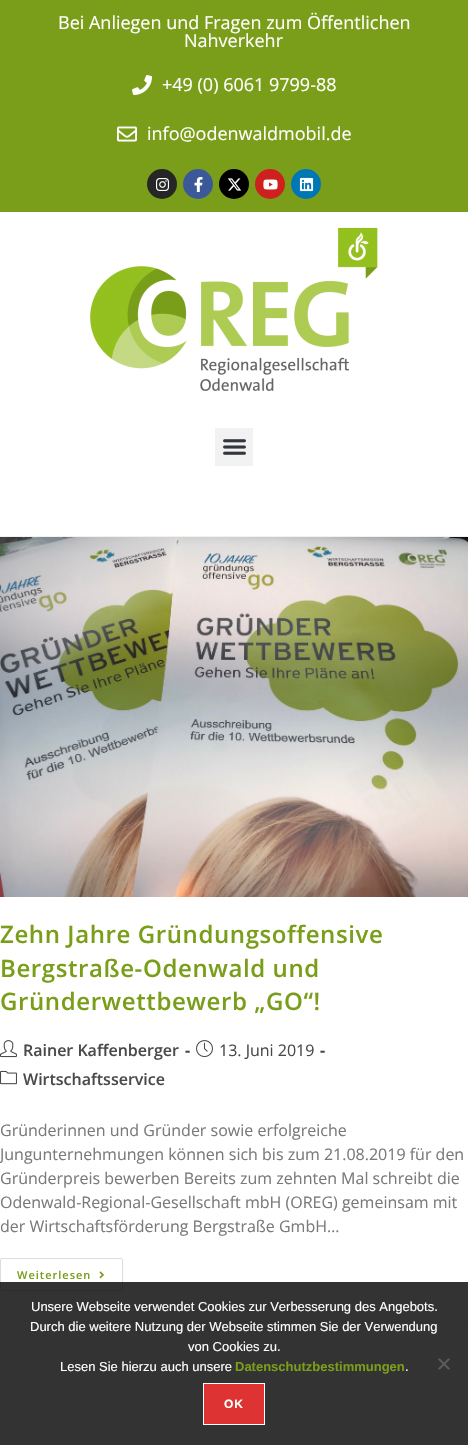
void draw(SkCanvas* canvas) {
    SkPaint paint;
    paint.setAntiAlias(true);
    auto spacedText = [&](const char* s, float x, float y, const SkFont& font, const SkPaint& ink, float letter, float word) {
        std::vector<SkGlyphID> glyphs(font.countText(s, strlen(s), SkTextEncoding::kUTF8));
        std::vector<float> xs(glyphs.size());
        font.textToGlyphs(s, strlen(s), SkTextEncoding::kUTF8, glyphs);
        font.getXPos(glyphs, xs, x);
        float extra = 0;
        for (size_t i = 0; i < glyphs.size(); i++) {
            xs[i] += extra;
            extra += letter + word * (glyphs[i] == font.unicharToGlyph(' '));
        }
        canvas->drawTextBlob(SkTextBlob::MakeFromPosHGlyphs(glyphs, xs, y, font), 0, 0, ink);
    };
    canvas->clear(0xFFFFFFFF);
    paint.setColor(0xFFF1F1F1);
    canvas->drawRect(SkRect::MakeXYWH(0, 536, 468, 1), paint);
    paint.setColor(0xFF7A9E1A);
    canvas->drawRect(SkRect::MakeXYWH(0, 0, 468, 212), paint);
    SkFont font1(fontMgr->matchFamilyStyle("Open Sans", SkFontStyle::Normal()), 18);
    font1.setSubpixel(true);
    paint.setColor(0xFFFFFFFF);
    canvas->drawString("Bei Anliegen und Fragen zum Öffentlichen", 58, 29, font1, paint);
    canvas->drawString("Nahverkehr", 184, 47, font1, paint);
    canvas->drawImageRect(SkImages::DeferredFromEncodedData(SkData::MakeFromFileName("img1.png")), SkRect::MakeXYWH(132, 75, 20, 20), SkSamplingOptions());
    canvas->drawString("+49 (0) 6061 9799-88", 162, 91, font1, paint);
    canvas->drawImageRect(SkImages::DeferredFromEncodedData(SkData::MakeFromFileName("img2.png")), SkRect::MakeXYWH(117, 126, 20, 16), SkSamplingOptions());
    canvas->drawString("info@odenwaldmobil.de", 147, 140, font1, paint);
    paint.setColor(0xFF262626);
    canvas->drawCircle(162, 184, 15, paint);
    canvas->drawImageRect(SkImages::DeferredFromEncodedData(SkData::MakeFromFileName("img3.png")), SkRect::MakeXYWH(156, 178, 14, 13), SkSamplingOptions());
    paint.setColor(0xFF3B5998);
    canvas->drawCircle(198, 184, 15, paint);
    canvas->drawImageRect(SkImages::DeferredFromEncodedData(SkData::MakeFromFileName("img4.png")), SkRect::MakeXYWH(194, 177, 9, 15), SkSamplingOptions());
    paint.setColor(0xFF000000);
    canvas->drawCircle(234, 184, 15, paint);
    canvas->drawImageRect(SkImages::DeferredFromEncodedData(SkData::MakeFromFileName("img5.png")), SkRect::MakeXYWH(227, 178, 15, 13), SkSamplingOptions());
    paint.setColor(0xFFCD201F);
    canvas->drawCircle(270, 184, 15, paint);
    canvas->drawImageRect(SkImages::DeferredFromEncodedData(SkData::MakeFromFileName("img6.png")), SkRect::MakeXYWH(263, 179, 15, 11), SkSamplingOptions());
    paint.setColor(0xFF0077B5);
    canvas->drawCircle(306, 184, 15, paint);
    canvas->drawImageRect(SkImages::DeferredFromEncodedData(SkData::MakeFromFileName("img7.png")), SkRect::MakeXYWH(299, 177, 15, 15), SkSamplingOptions());
    canvas->drawImageRect(SkImages::DeferredFromEncodedData(SkData::MakeFromFileName("img8.png")), SkRect::MakeXYWH(90, 227, 288, 164), SkSamplingOptions());
    paint.setColor(0xFFF2F2F2);
    canvas->drawRect(SkRect::MakeXYWH(215, 428, 38, 38), paint);
    canvas->drawImageRect(SkImages::DeferredFromEncodedData(SkData::MakeFromFileName("img9.png")), SkRect::MakeXYWH(223, 439, 23, 16), SkSamplingOptions());
    paint.setColor(0xFFF1F1F1);
    canvas->drawRect(SkRect::MakeXYWH(0, 1321, 468, 1), paint);
    canvas->drawImageRect(SkImages::DeferredFromEncodedData(SkData::MakeFromFileName("img10.png")), SkRect::MakeXYWH(0, 537, 468, 360), SkSamplingOptions());
    SkFont font2(fontMgr->matchFamilyStyle("Open Sans", SkFontStyle(600, SkFontStyle::kNormal_Width, SkFontStyle::kUpright_Slant)), 24);
    font2.setSubpixel(true);
    paint.setColor(0xFF7A9E1A);
    spacedText("Zehn Jahre Gründungsoffensive", 0, 943, font2, paint, 0.6f, 0);
    spacedText("Bergstraße-Odenwald und", 0, 977, font2, paint, 0.6f, 0);
    spacedText("Gründerwettbewerb „GO“!", 0, 1010, font2, paint, 0.6f, 0);
    canvas->drawImageRect(SkImages::DeferredFromEncodedData(SkData::MakeFromFileName("img11.png")), SkRect::MakeXYWH(0, 1040, 17, 18), SkSamplingOptions());
    SkFont font3(fontMgr->matchFamilyStyle("Open Sans", SkFontStyle(600, SkFontStyle::kNormal_Width, SkFontStyle::kUpright_Slant)), 16);
    font3.setSubpixel(true);
    paint.setColor(0xFF4A4A4A);
    canvas->drawString("Rainer Kaffenberger", 23, 1056, font3, paint);
    SkFont font4(fontMgr->matchFamilyStyle("Open Sans", SkFontStyle::Bold()), 16);
    font4.setSubpixel(true);
    canvas->drawString("-", 185, 1056, font4, paint);
    canvas->drawImageRect(SkImages::DeferredFromEncodedData(SkData::MakeFromFileName("img12.png")), SkRect::MakeXYWH(196, 1040, 17, 18), SkSamplingOptions());
    SkFont font5(fontMgr->matchFamilyStyle("Open Sans", SkFontStyle::Normal()), 16);
    font5.setSubpixel(true);
    canvas->drawString("13. Juni 2019", 219, 1056, font5, paint);
    canvas->drawString("-", 320, 1056, font4, paint);
    canvas->drawImageRect(SkImages::DeferredFromEncodedData(SkData::MakeFromFileName("img13.png")), SkRect::MakeXYWH(0, 1070, 17, 15), SkSamplingOptions());
    canvas->drawString("Wirtschaftsservice", 23, 1085, font3, paint);
    paint.setColor(0xFF7A7A7A);
    canvas->drawString("Gründerinnen und Gründer sowie erfolgreiche", 0, 1136, font5, paint);
    canvas->drawString("Jungunternehmungen können sich bis zum 21.08.2019 für den", 0, 1160, font5, paint);
    canvas->drawString("Gründerpreis bewerben Bereits zum zehnten Mal schreibt die", 0, 1184, font5, paint);
    canvas->drawString("Odenwald-Regional-Gesellschaft mbH (OREG) gemeinsam mit", 0, 1208, font5, paint);
    canvas->drawString("der Wirtschaftsförderung Bergstraße GmbH…", 0, 1232, font5, paint);
    paint.setStyle(SkPaint::kStroke_Style);
    paint.setStrokeWidth(1);
    paint.setColor(0xFFDDDDDD);
    canvas->drawRoundRect(SkRect::MakeXYWH(0.5f, 1258.5f, 122, 32), 1.5f, 1.5f, paint);
    SkFont font6(fontMgr->matchFamilyStyle("Open Sans", SkFontStyle(600, SkFontStyle::kNormal_Width, SkFontStyle::kUpright_Slant)), 11);
    font6.setSubpixel(true);
    paint.setStyle(SkPaint::kFill_Style);
    paint.setColor(0xFF7A9E1A);
    spacedText("Weiterlesen", 17, 1279, font6, paint, 1, 0);
    canvas->drawImageRect(SkImages::DeferredFromEncodedData(SkData::MakeFromFileName("img14.png")), SkRect::MakeXYWH(99, 1271, 5, 8), SkSamplingOptions());
    paint.setColor(0xCC000000);
    canvas->drawRect(SkRect::MakeXYWH(0, 1282, 468, 163), paint);
    SkFont font7(fontMgr->matchFamilyStyle("Liberation Sans", SkFontStyle::Normal()), 13);
    font7.setSubpixel(true);
    paint.setColor(0xFFFFFFFF);
    canvas->drawString("Unsere Webseite verwendet Cookies zur Verbesserung des Angebots.", 31, 1311, font7, paint);
    canvas->drawString("Durch die weitere Nutzung der Webseite stimmen Sie der Verwendung", 30, 1331, font7, paint);
    canvas->drawString("von Cookies zu.", 188, 1351, font7, paint);
    canvas->drawString("Lesen Sie hierzu auch unsere", 60, 1371, font7, paint);
    SkFont font8(fontMgr->matchFamilyStyle("Liberation Sans", SkFontStyle::Bold()), 13);
    font8.setSubpixel(true);
    paint.setColor(0xFF7A9E1A);
    canvas->drawString("Datenschutzbestimmungen", 235, 1371, font8, paint);
    paint.setColor(0xFFFFFFFF);
    canvas->drawString(".", 405, 1371, font7, paint);
    paint.setColor(0xFF5A5A5A);
    canvas->drawPath(SkPathBuilder().moveTo(448.5f, 1358).lineTo(450, 1359.5f).lineTo(439.5f, 1370).lineTo(438, 1368.5f).close().detach(), paint);
    canvas->drawPath(SkPathBuilder().moveTo(438, 1359.5f).lineTo(439.5f, 1358).lineTo(450, 1368.5f).lineTo(448.5f, 1370).close().detach(), paint);
    paint.setColor(0xFFDD3333);
    canvas->drawRect(SkRect::MakeXYWH(203.5f, 1383.5f, 61, 41), paint);
    paint.setStyle(SkPaint::kStroke_Style);
    paint.setColor(0xFFFFFFFF);
    canvas->drawRect(SkRect::MakeXYWH(203.5f, 1383.5f, 61, 41), paint);
    SkFont font9(fontMgr->matchFamilyStyle("Liberation Sans", SkFontStyle::Bold()), 12);
    font9.setSubpixel(true);
    paint.setStyle(SkPaint::kFill_Style);
    spacedText("OK", 224, 1408, font9, paint, 1, 0);
}
